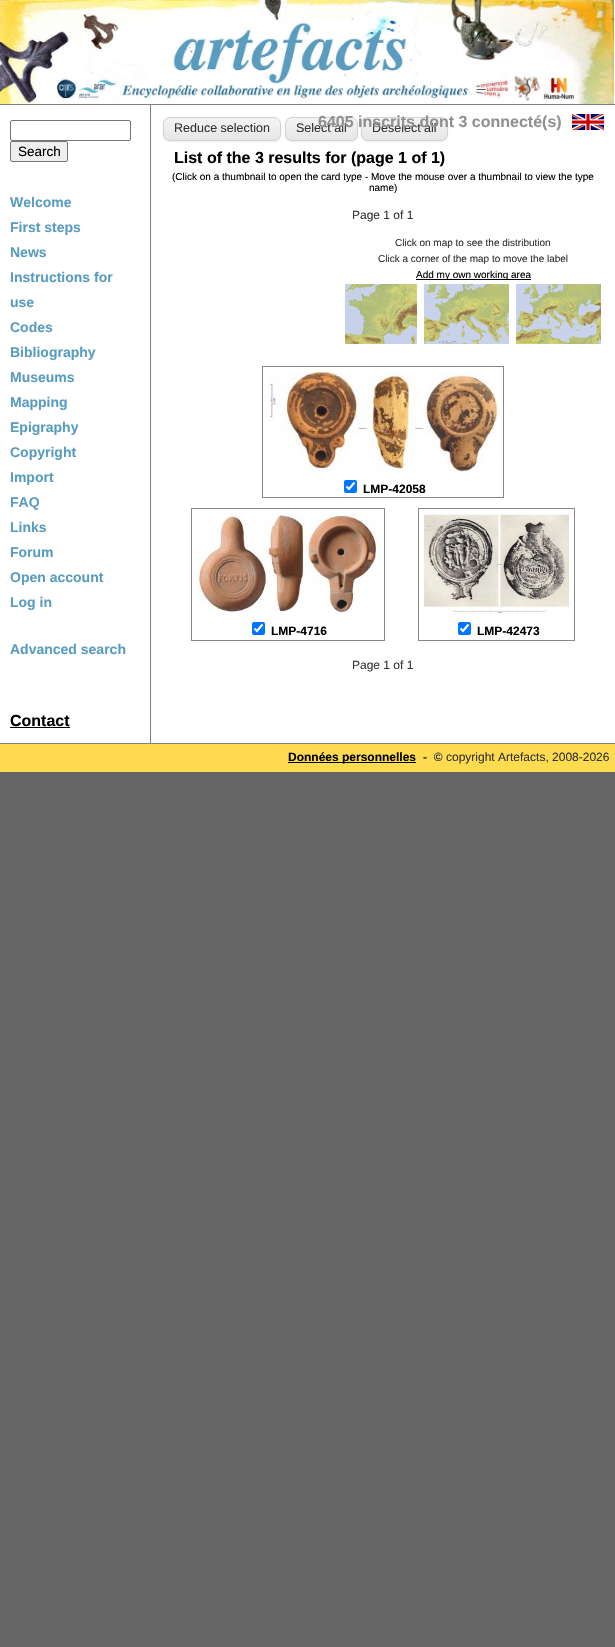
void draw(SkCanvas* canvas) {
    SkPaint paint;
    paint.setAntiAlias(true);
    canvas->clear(0xFF666666);
    paint.setColor(0xFFFFFFFF);
    canvas->drawRect(SkRect::MakeXYWH(0, 0, 615, 743), paint);
    paint.setColor(0xFF808080);
    canvas->drawRect(SkRect::MakeXYWH(0, 104, 615, 1), paint);
    canvas->drawImageRect(SkImages::DeferredFromEncodedData(SkData::MakeFromFileName("img1.png")), SkRect::MakeXYWH(0, 0, 614, 104), SkSamplingOptions());
    canvas->drawRect(SkRect::MakeXYWH(150, 105, 1, 638), paint);
    paint.setStyle(SkPaint::kStroke_Style);
    paint.setStrokeWidth(1);
    paint.setColor(0xFF767676);
    canvas->drawRoundRect(SkRect::MakeXYWH(10.5f, 120.5f, 120, 20), 1.5f, 1.5f, paint);
    paint.setStyle(SkPaint::kFill_Style);
    paint.setColor(0xFFEFEFEF);
    canvas->drawRoundRect(SkRect::MakeXYWH(10.5f, 141.5f, 57, 20), 1.5f, 1.5f, paint);
    paint.setStyle(SkPaint::kStroke_Style);
    paint.setColor(0xFF767676);
    canvas->drawRoundRect(SkRect::MakeXYWH(10.5f, 141.5f, 57, 20), 1.5f, 1.5f, paint);
    SkFont font1(fontMgr->matchFamilyStyle("Liberation Sans", SkFontStyle::Normal()), 13.5f);
    font1.setSubpixel(true);
    paint.setStyle(SkPaint::kFill_Style);
    paint.setColor(0xFF000000);
    canvas->drawString("Search", 18, 156, font1, paint);
    SkFont font2(fontMgr->matchFamilyStyle("Liberation Sans", SkFontStyle::Bold()), 14);
    font2.setSubpixel(true);
    paint.setColor(0xFF5A9CBF);
    canvas->drawString("Welcome", 10, 207, font2, paint);
    canvas->drawString("First steps", 10, 232, font2, paint);
    canvas->drawString("News", 10, 257, font2, paint);
    canvas->drawString("Instructions for", 10, 282, font2, paint);
    canvas->drawString("use", 10, 307, font2, paint);
    canvas->drawString("Codes", 10, 332, font2, paint);
    canvas->drawString("Bibliography", 10, 357, font2, paint);
    canvas->drawString("Museums", 10, 382, font2, paint);
    canvas->drawString("Mapping", 10, 407, font2, paint);
    canvas->drawString("Epigraphy", 10, 432, font2, paint);
    canvas->drawString("Copyright", 10, 457, font2, paint);
    canvas->drawString("Import", 10, 482, font2, paint);
    canvas->drawString("FAQ", 10, 507, font2, paint);
    canvas->drawString("Links", 10, 532, font2, paint);
    canvas->drawString("Forum", 10, 557, font2, paint);
    canvas->drawString("Open account", 10, 582, font2, paint);
    canvas->drawString("Log in", 10, 607, font2, paint);
    canvas->drawString("Advanced search", 10, 654, font2, paint);
    SkFont font3(fontMgr->matchFamilyStyle("Liberation Sans", SkFontStyle::Bold()), 16);
    font3.setSubpixel(true);
    paint.setColor(0xFF000000);
    canvas->drawString("Contact", 10, 726, font3, paint);
    canvas->drawRect(SkRect::MakeXYWH(10, 727, 60, 1), paint);
    paint.setColor(0x1A404040);
    paint.setMaskFilter(SkMaskFilter::MakeBlur(kNormal_SkBlurStyle, 1));
    canvas->drawRoundRect(SkRect::MakeXYWH(163, 118, 118, 24), 7, 7, paint);
    paint.setMaskFilter(nullptr);
    canvas->save();
    canvas->clipPath(SkPathBuilder().moveTo(170, 117).lineTo(274, 117).cubicTo(278, 117, 281, 120, 281, 124).lineTo(281, 134).cubicTo(281, 138, 278, 141, 274, 141).lineTo(170, 141).cubicTo(166, 141, 163, 138, 163, 134).lineTo(163, 124).cubicTo(163, 120, 166, 117, 170, 117).close().detach(), true);
    {
        const SkColor colors[] = {0xFFF4F4F4, 0xFFE6E6E6};
        const float stops[] = {0, 1};
        const SkPoint ends[] = {{222, 118}, {222, 140}};
        paint.setShader(SkGradientShader::MakeLinear(ends, colors, stops, 2, SkTileMode::kClamp));
        paint.setAlpha(255);
    }
    canvas->drawRect(SkRect::MakeXYWH(163, 118, 118, 22), paint);
    canvas->restore();
    paint.setStyle(SkPaint::kStroke_Style);
    paint.setShader(nullptr);
    paint.setColor(0xFFD2D2D2);
    canvas->drawRoundRect(SkRect::MakeXYWH(163.5f, 117.5f, 117, 23), 6.5f, 6.5f, paint);
    SkFont font4(fontMgr->matchFamilyStyle("Liberation Sans", SkFontStyle::Normal()), 12.5f);
    font4.setSubpixel(true);
    paint.setStyle(SkPaint::kFill_Style);
    paint.setColor(0xFF333333);
    canvas->drawString("Reduce selection", 174, 132, font4, paint);
    paint.setColor(0x1A404040);
    paint.setMaskFilter(SkMaskFilter::MakeBlur(kNormal_SkBlurStyle, 1));
    canvas->drawRoundRect(SkRect::MakeXYWH(285, 118, 73, 24), 7, 7, paint);
    paint.setMaskFilter(nullptr);
    canvas->save();
    canvas->clipPath(SkPathBuilder().moveTo(292, 117).lineTo(351, 117).cubicTo(355, 117, 358, 120, 358, 124).lineTo(358, 134).cubicTo(358, 138, 355, 141, 351, 141).lineTo(292, 141).cubicTo(288, 141, 285, 138, 285, 134).lineTo(285, 124).cubicTo(285, 120, 288, 117, 292, 117).close().detach(), true);
    {
        const SkColor colors[] = {0xFFF4F4F4, 0xFFE6E6E6};
        const float stops[] = {0, 1};
        const SkPoint ends[] = {{322, 118}, {322, 140}};
        paint.setShader(SkGradientShader::MakeLinear(ends, colors, stops, 2, SkTileMode::kClamp));
        paint.setAlpha(255);
    }
    canvas->drawRect(SkRect::MakeXYWH(285, 118, 73, 22), paint);
    canvas->restore();
    paint.setStyle(SkPaint::kStroke_Style);
    paint.setShader(nullptr);
    paint.setColor(0xFFD2D2D2);
    canvas->drawRoundRect(SkRect::MakeXYWH(285.5f, 117.5f, 72, 23), 6.5f, 6.5f, paint);
    paint.setStyle(SkPaint::kFill_Style);
    paint.setColor(0xFF333333);
    canvas->drawString("Select all", 296, 132, font4, paint);
    paint.setColor(0x1A404040);
    paint.setMaskFilter(SkMaskFilter::MakeBlur(kNormal_SkBlurStyle, 1));
    canvas->drawRoundRect(SkRect::MakeXYWH(361, 118, 87, 24), 7, 7, paint);
    paint.setMaskFilter(nullptr);
    canvas->save();
    canvas->clipPath(SkPathBuilder().moveTo(368, 117).lineTo(441, 117).cubicTo(445, 117, 448, 120, 448, 124).lineTo(448, 134).cubicTo(448, 138, 445, 141, 441, 141).lineTo(368, 141).cubicTo(364, 141, 361, 138, 361, 134).lineTo(361, 124).cubicTo(361, 120, 364, 117, 368, 117).close().detach(), true);
    {
        const SkColor colors[] = {0xFFF4F4F4, 0xFFE6E6E6};
        const float stops[] = {0, 1};
        const SkPoint ends[] = {{405, 118}, {405, 140}};
        paint.setShader(SkGradientShader::MakeLinear(ends, colors, stops, 2, SkTileMode::kClamp));
        paint.setAlpha(255);
    }
    canvas->drawRect(SkRect::MakeXYWH(361, 118, 87, 22), paint);
    canvas->restore();
    paint.setStyle(SkPaint::kStroke_Style);
    paint.setShader(nullptr);
    paint.setColor(0xFFD2D2D2);
    canvas->drawRoundRect(SkRect::MakeXYWH(361.5f, 117.5f, 86, 23), 6.5f, 6.5f, paint);
    paint.setStyle(SkPaint::kFill_Style);
    paint.setColor(0xFF333333);
    canvas->drawString("Deselect all", 372, 132, font4, paint);
    paint.setColor(0xFF909090);
    canvas->drawString("6405 inscrits dont 3 connecté(s)", 318, 127, font3, paint);
    canvas->drawImageRect(SkImages::DeferredFromEncodedData(SkData::MakeFromFileName("img2.png")), SkRect::MakeXYWH(572, 114, 32, 16), SkSamplingOptions());
    paint.setColor(0xFF000000);
    canvas->drawString("List of the 3 results for (page 1 of 1)", 174, 163, font3, paint);
    SkFont font5(fontMgr->matchFamilyStyle("Liberation Sans", SkFontStyle::Normal()), 10);
    font5.setSubpixel(true);
    canvas->drawString("(Click on a thumbnail to open the card type - Move the mouse over a thumbnail to view the type", 172, 180, font5, paint);
    canvas->drawString("name)", 369, 191, font5, paint);
    SkFont font6(fontMgr->matchFamilyStyle("Liberation Sans", SkFontStyle::Normal()), 12);
    font6.setSubpixel(true);
    paint.setColor(0xFF333333);
    canvas->drawString("Page 1 of 1", 352, 219, font6, paint);
    canvas->drawString("Click on map to see the distribution", 395, 246, font5, paint);
    canvas->drawString("Click a corner of the map to move the label", 378, 262, font5, paint);
    paint.setColor(0xFF000000);
    canvas->drawRect(SkRect::MakeXYWH(416, 279, 115, 1), paint);
    canvas->drawString("Add my own working area", 416, 278, font5, paint);
    canvas->drawImageRect(SkImages::DeferredFromEncodedData(SkData::MakeFromFileName("img3.png")), SkRect::MakeXYWH(345, 284, 72, 60), SkSamplingOptions());
    canvas->drawImageRect(SkImages::DeferredFromEncodedData(SkData::MakeFromFileName("img4.png")), SkRect::MakeXYWH(424, 284, 85, 60), SkSamplingOptions());
    canvas->drawImageRect(SkImages::DeferredFromEncodedData(SkData::MakeFromFileName("img5.png")), SkRect::MakeXYWH(516, 284, 85, 60), SkSamplingOptions());
    paint.setStyle(SkPaint::kStroke_Style);
    paint.setColor(0xFF888888);
    canvas->drawRect(SkRect::MakeXYWH(262.5f, 366.5f, 241, 131), paint);
    canvas->drawImageRect(SkImages::DeferredFromEncodedData(SkData::MakeFromFileName("img6.png")), SkRect::MakeXYWH(268, 372, 230, 100), SkSamplingOptions());
    paint.setStyle(SkPaint::kFill_Style);
    paint.setColor(0xFF0075FF);
    canvas->drawRoundRect(SkRect::MakeXYWH(344, 480, 13, 13), 2, 2, paint);
    paint.setStyle(SkPaint::kStroke_Style);
    paint.setStrokeWidth(2.1f);
    paint.setColor(0xFFFFFFFF);
    canvas->drawPath(SkPathBuilder().moveTo(346.5f, 486.5f).lineTo(349, 489).lineTo(354.5f, 482.5f).detach(), paint);
    SkFont font7(fontMgr->matchFamilyStyle("Liberation Sans", SkFontStyle::Bold()), 12);
    font7.setSubpixel(true);
    paint.setStyle(SkPaint::kFill_Style);
    paint.setColor(0xFF000000);
    canvas->drawString("LMP-42058", 363, 493, font7, paint);
    paint.setStyle(SkPaint::kStroke_Style);
    paint.setStrokeWidth(1);
    paint.setColor(0xFF888888);
    canvas->drawRect(SkRect::MakeXYWH(191.5f, 508.5f, 193, 132), paint);
    canvas->drawImageRect(SkImages::DeferredFromEncodedData(SkData::MakeFromFileName("img7.png")), SkRect::MakeXYWH(197, 514, 182, 100), SkSamplingOptions());
    paint.setStyle(SkPaint::kFill_Style);
    paint.setColor(0xFF0075FF);
    canvas->drawRoundRect(SkRect::MakeXYWH(252, 622, 13, 13), 2, 2, paint);
    paint.setStyle(SkPaint::kStroke_Style);
    paint.setStrokeWidth(2.1f);
    paint.setColor(0xFFFFFFFF);
    canvas->drawPath(SkPathBuilder().moveTo(254.5f, 628.5f).lineTo(257, 631).lineTo(262.5f, 624.5f).detach(), paint);
    paint.setStyle(SkPaint::kFill_Style);
    paint.setColor(0xFF000000);
    canvas->drawString("LMP-4716", 271, 635, font7, paint);
    paint.setStyle(SkPaint::kStroke_Style);
    paint.setStrokeWidth(1);
    paint.setColor(0xFF888888);
    canvas->drawRect(SkRect::MakeXYWH(418.5f, 508.5f, 156, 132), paint);
    canvas->drawImageRect(SkImages::DeferredFromEncodedData(SkData::MakeFromFileName("img8.png")), SkRect::MakeXYWH(424, 514, 145, 100), SkSamplingOptions());
    paint.setStyle(SkPaint::kFill_Style);
    paint.setColor(0xFF0075FF);
    canvas->drawRoundRect(SkRect::MakeXYWH(458, 622, 13, 13), 2, 2, paint);
    paint.setStyle(SkPaint::kStroke_Style);
    paint.setStrokeWidth(2.1f);
    paint.setColor(0xFFFFFFFF);
    canvas->drawPath(SkPathBuilder().moveTo(460.5f, 628.5f).lineTo(463, 631).lineTo(468.5f, 624.5f).detach(), paint);
    paint.setStyle(SkPaint::kFill_Style);
    paint.setColor(0xFF000000);
    canvas->drawString("LMP-42473", 477, 635, font7, paint);
    paint.setColor(0xFF333333);
    canvas->drawString("Page 1 of 1", 352, 669, font6, paint);
    paint.setColor(0xFFFFDB4F);
    canvas->drawRect(SkRect::MakeXYWH(0, 744, 615, 28), paint);
    paint.setColor(0xFF808080);
    canvas->drawRect(SkRect::MakeXYWH(0, 743, 615, 1), paint);
    paint.setColor(0xFF000000);
    canvas->drawRect(SkRect::MakeXYWH(288, 762, 128, 1), paint);
    canvas->drawString("Données personnelles", 288, 761, font7, paint);
    paint.setColor(0xFF333333);
    canvas->drawString("-  ©", 423, 761, font7, paint);
    canvas->drawString("copyright Artefacts, 2008-2026", 446, 761, font6, paint);
}
